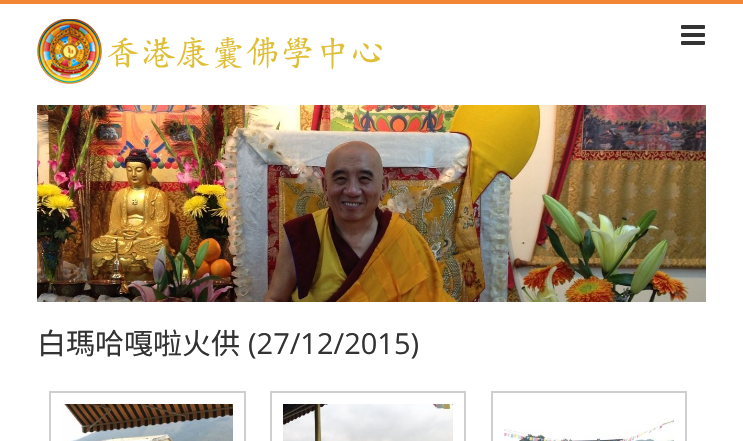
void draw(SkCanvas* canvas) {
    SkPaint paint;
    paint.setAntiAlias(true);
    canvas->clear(0xFFFFFFFF);
    paint.setColor(0xFFF38635);
    canvas->drawRect(SkRect::MakeXYWH(0, 0, 743, 4), paint);
    canvas->drawImageRect(SkImages::DeferredFromEncodedData(SkData::MakeFromFileName("img1.png")), SkRect::MakeXYWH(37, 19, 345, 65), SkSamplingOptions());
    paint.setColor(0xFF333333);
    canvas->drawRoundRect(SkRect::MakeXYWH(681, 33, 24, 4), 1, 1, paint);
    canvas->drawRoundRect(SkRect::MakeXYWH(681, 25, 24, 4), 1, 1, paint);
    canvas->drawRoundRect(SkRect::MakeXYWH(681, 41, 24, 4), 1, 1, paint);
    canvas->drawImageRect(SkImages::DeferredFromEncodedData(SkData::MakeFromFileName("img2.png")), SkRect::MakeXYWH(37, 105, 669, 197), SkSamplingOptions());
    SkFont font1(fontMgr->matchFamilyStyle("Noto Sans CJK TC", SkFontStyle::Normal()), 29);
    font1.setSubpixel(true);
    canvas->drawString("白瑪哈嘎啦火供", 37, 354, font1, paint);
    SkFont font2(fontMgr->matchFamilyStyle("Open Sans", SkFontStyle::Normal()), 29);
    font2.setSubpixel(true);
    canvas->drawString("(27/12/2015)", 248, 354, font2, paint);
    paint.setStyle(SkPaint::kStroke_Style);
    paint.setStrokeWidth(2);
    paint.setColor(0xFFCFCFCF);
    canvas->drawRect(SkRect::MakeXYWH(50, 392, 195, 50), paint);
    canvas->drawImageRect(SkImages::DeferredFromEncodedData(SkData::MakeFromFileName("img3.png")), SkRect::MakeXYWH(62, 404, 171, 37), SkSamplingOptions());
    canvas->drawRect(SkRect::MakeXYWH(271, 392, 194, 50), paint);
    canvas->drawImageRect(SkImages::DeferredFromEncodedData(SkData::MakeFromFileName("img4.png")), SkRect::MakeXYWH(283, 404, 170, 37), SkSamplingOptions());
    canvas->drawRect(SkRect::MakeXYWH(492, 392, 194, 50), paint);
    canvas->drawImageRect(SkImages::DeferredFromEncodedData(SkData::MakeFromFileName("img5.png")), SkRect::MakeXYWH(504, 418, 170, 23), SkSamplingOptions());
}
